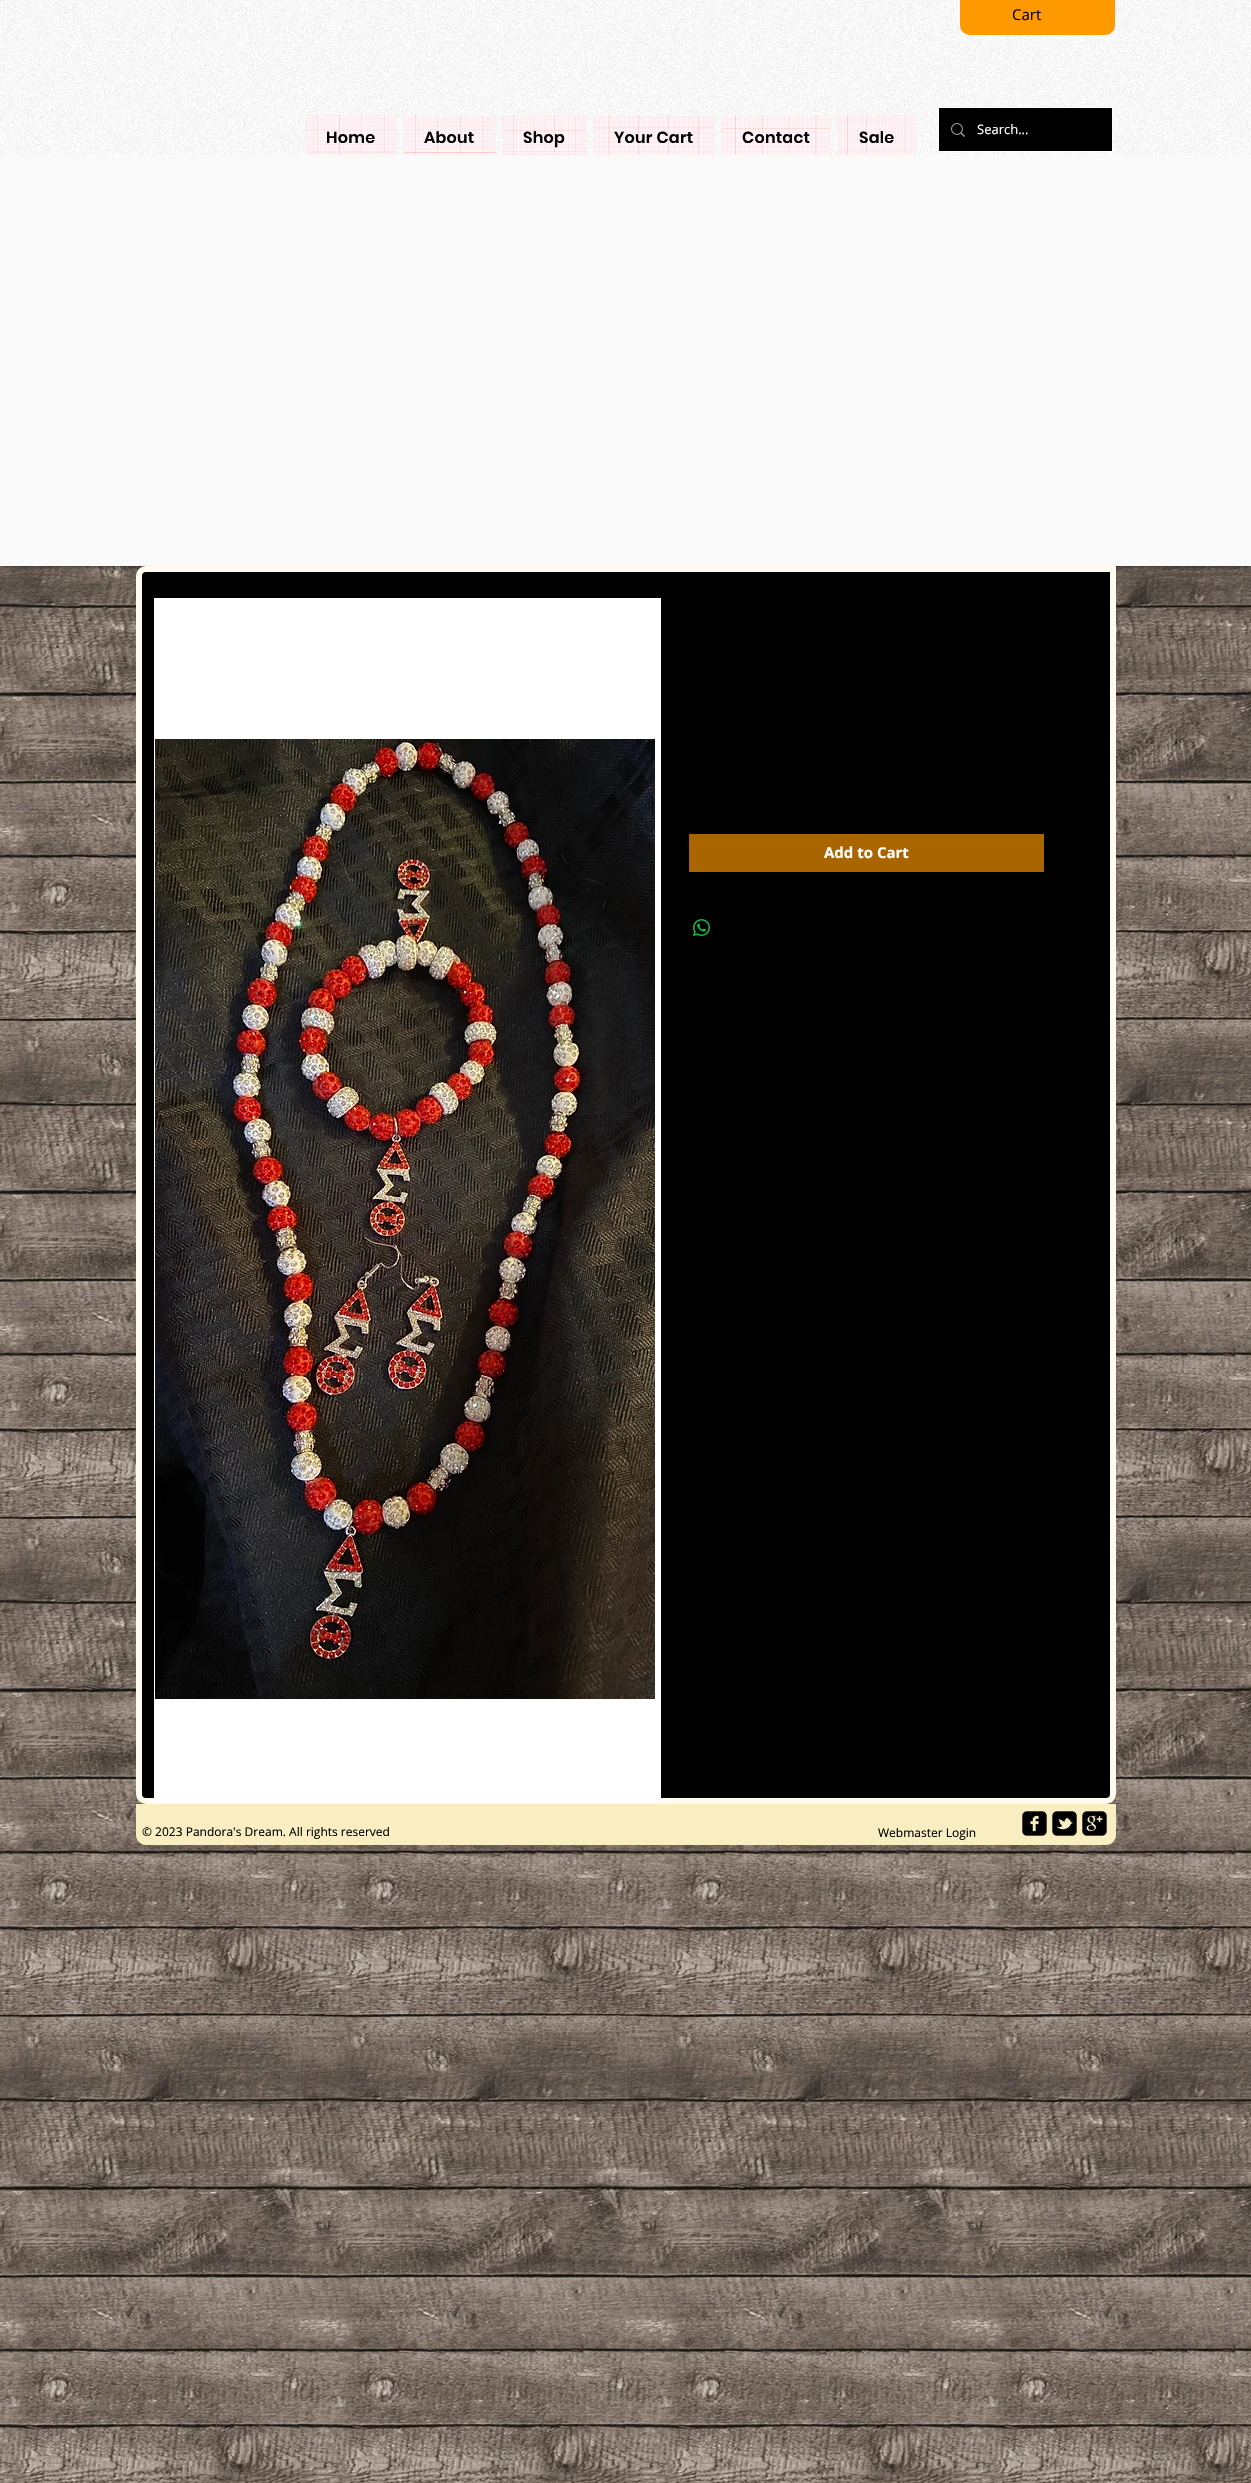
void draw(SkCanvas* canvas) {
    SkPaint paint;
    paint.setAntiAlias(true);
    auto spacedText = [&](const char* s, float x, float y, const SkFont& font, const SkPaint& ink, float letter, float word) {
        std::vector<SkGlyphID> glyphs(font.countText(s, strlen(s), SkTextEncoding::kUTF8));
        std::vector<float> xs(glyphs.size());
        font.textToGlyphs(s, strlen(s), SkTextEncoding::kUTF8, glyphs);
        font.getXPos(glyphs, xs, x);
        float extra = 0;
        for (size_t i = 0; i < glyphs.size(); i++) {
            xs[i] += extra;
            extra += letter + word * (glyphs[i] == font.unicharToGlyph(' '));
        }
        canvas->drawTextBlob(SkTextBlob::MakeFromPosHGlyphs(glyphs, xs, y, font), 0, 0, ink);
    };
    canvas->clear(0xFFFFFFFF);
    canvas->drawImageRect(SkImages::DeferredFromEncodedData(SkData::MakeFromFileName("img14.png")), SkRect::MakeXYWH(0, 566, 1251, 1917), SkSamplingOptions());
    paint.setColor(0xB3000000);
    paint.setMaskFilter(SkMaskFilter::MakeBlur(kNormal_SkBlurStyle, 2.5f));
    canvas->drawRect(SkRect::MakeXYWH(0, 0, 1251, 566), paint);
    paint.setMaskFilter(nullptr);
    paint.setColor(0xFFFFFFFF);
    canvas->drawRect(SkRect::MakeXYWH(0, 0, 1251, 155), paint);
    canvas->drawImageRect(SkImages::DeferredFromEncodedData(SkData::MakeFromFileName("img1.png")), SkRect::MakeXYWH(0, 0, 1251, 155), SkSamplingOptions());
    paint.setColor(0xFFFF9900);
    canvas->drawPath(SkPathBuilder().moveTo(960, 0).lineTo(1115, 0).lineTo(1115, 25).cubicTo(1115, 30.5f, 1110.5f, 35, 1105, 35).lineTo(970, 35).cubicTo(964.5f, 35, 960, 30.5f, 960, 25).close().detach(), paint);
    SkFont font1(fontMgr->matchFamilyStyle("Open Sans", SkFontStyle::Normal()), 15);
    font1.setSubpixel(true);
    paint.setColor(0xFF000000);
    canvas->drawString("Cart", 1012, 20, font1, paint);
    paint.setStyle(SkPaint::kStroke_Style);
    paint.setStrokeWidth(1);
    paint.setColor(0x99FFFFFF);
    canvas->drawRect(SkRect::MakeXYWH(938.5f, 107.5f, 174, 44), paint);
    paint.setStyle(SkPaint::kFill_Style);
    paint.setColor(0xFF000000);
    canvas->drawRect(SkRect::MakeXYWH(939, 108, 173, 43), paint);
    canvas->drawImageRect(SkImages::DeferredFromEncodedData(SkData::MakeFromFileName("img2.png")), SkRect::MakeXYWH(951, 123, 14, 14), SkSamplingOptions());
    SkFont font2(fontMgr->matchFamilyStyle("Open Sans", SkFontStyle::Normal()), 13);
    font2.setSubpixel(true);
    paint.setColor(0xFFFFFFFF);
    canvas->drawString("Search...", 977, 134, font2, paint);
    paint.setColor(0xFFFFF5F9);
    canvas->drawRect(SkRect::MakeXYWH(306, 115, 90, 40), paint);
    canvas->drawImageRect(SkImages::DeferredFromEncodedData(SkData::MakeFromFileName("img3.png")), SkRect::MakeXYWH(306, 115, 90, 40), SkSamplingOptions());
    SkFont font3(fontMgr->matchFamilyStyle("Poppins", SkFontStyle(600, SkFontStyle::kNormal_Width, SkFontStyle::kUpright_Slant)), 16);
    font3.setSubpixel(true);
    paint.setColor(0xFF000000);
    spacedText("Home", 326, 143, font3, paint, 0.25f, 0);
    paint.setColor(0xFFFFF5F9);
    canvas->drawRect(SkRect::MakeXYWH(404, 115, 91, 40), paint);
    canvas->drawImageRect(SkImages::DeferredFromEncodedData(SkData::MakeFromFileName("img4.png")), SkRect::MakeXYWH(404, 115, 91, 40), SkSamplingOptions());
    paint.setColor(0xFF000000);
    spacedText("About", 424, 143, font3, paint, 0.25f, 0);
    paint.setColor(0xFFFFF5F9);
    canvas->drawRect(SkRect::MakeXYWH(503, 115, 83, 40), paint);
    canvas->drawImageRect(SkImages::DeferredFromEncodedData(SkData::MakeFromFileName("img5.png")), SkRect::MakeXYWH(503, 115, 83, 40), SkSamplingOptions());
    paint.setColor(0xFF000000);
    spacedText("Shop", 523, 143, font3, paint, 0.25f, 0);
    paint.setColor(0xFFFFF5F9);
    canvas->drawRect(SkRect::MakeXYWH(594, 115, 120, 40), paint);
    canvas->drawImageRect(SkImages::DeferredFromEncodedData(SkData::MakeFromFileName("img6.png")), SkRect::MakeXYWH(594, 115, 120, 40), SkSamplingOptions());
    paint.setColor(0xFF000000);
    spacedText("Your Cart", 614, 143, font3, paint, 0.25f, 0);
    paint.setColor(0xFFFFF5F9);
    canvas->drawRect(SkRect::MakeXYWH(722, 115, 108, 40), paint);
    canvas->drawImageRect(SkImages::DeferredFromEncodedData(SkData::MakeFromFileName("img7.png")), SkRect::MakeXYWH(722, 115, 108, 40), SkSamplingOptions());
    paint.setColor(0xFF000000);
    spacedText("Contact", 742, 143, font3, paint, 0.25f, 0);
    paint.setColor(0xFFFFF5F9);
    canvas->drawRect(SkRect::MakeXYWH(838, 115, 77, 40), paint);
    canvas->drawImageRect(SkImages::DeferredFromEncodedData(SkData::MakeFromFileName("img8.png")), SkRect::MakeXYWH(838, 115, 77, 40), SkSamplingOptions());
    paint.setColor(0xFF000000);
    spacedText("Sale", 859, 143, font3, paint, 0.25f, 0);
    paint.setColor(0xFFFAFAFA);
    canvas->drawRect(SkRect::MakeXYWH(0, 155, 1251, 411), paint);
    paint.setColor(0xFF000000);
    canvas->drawPath(SkPathBuilder().moveTo(146, 569).lineTo(1113, 569).lineTo(1113, 1794).cubicTo(1113, 1798, 1110, 1801, 1106, 1801).lineTo(146, 1801).cubicTo(142, 1801, 139, 1798, 139, 1794).lineTo(139, 576).cubicTo(139, 572, 142, 569, 146, 569).close().detach(), paint);
    paint.setStyle(SkPaint::kStroke_Style);
    paint.setStrokeWidth(6);
    paint.setColor(0xFFFFFBEF);
    canvas->drawPath(SkPathBuilder().moveTo(146, 569).lineTo(1113, 569).lineTo(1113, 1794).cubicTo(1113, 1798, 1110, 1801, 1106, 1801).lineTo(146, 1801).cubicTo(142, 1801, 139, 1798, 139, 1794).lineTo(139, 576).cubicTo(139, 572, 142, 569, 146, 569).close().detach(), paint);
    paint.setStyle(SkPaint::kFill_Style);
    paint.setColor(0xFFFFFFFF);
    canvas->drawRect(SkRect::MakeXYWH(154, 598, 507, 1205), paint);
    canvas->drawImageRect(SkImages::DeferredFromEncodedData(SkData::MakeFromFileName("img9.png")), SkRect::MakeXYWH(155, 739, 500, 960), SkSamplingOptions());
    paint.setColor(0xFFA96500);
    canvas->drawRect(SkRect::MakeXYWH(689, 834, 355, 38), paint);
    SkFont font4(fontMgr->matchFamilyStyle("Open Sans", SkFontStyle::Bold()), 15);
    font4.setSubpixel(true);
    paint.setColor(0xFFFFFFFF);
    canvas->drawString("Add to Cart", 824, 858, font4, paint);
    canvas->drawImageRect(SkImages::DeferredFromEncodedData(SkData::MakeFromFileName("img10.png")), SkRect::MakeXYWH(693, 919, 17, 17), SkSamplingOptions());
    paint.setColor(0xFFF9EEC2);
    canvas->drawPath(SkPathBuilder().moveTo(136, 1804).lineTo(1116, 1804).lineTo(1116, 1835).cubicTo(1116, 1840.5f, 1111.5f, 1845, 1106, 1845).lineTo(146, 1845).cubicTo(140.5f, 1845, 136, 1840.5f, 136, 1835).close().detach(), paint);
    SkFont font5(fontMgr->matchFamilyStyle("Open Sans", SkFontStyle::Normal()), 12);
    font5.setSubpixel(true);
    paint.setColor(0xFF000000);
    canvas->drawString("© 2023 Pandora's Dream. All rights reserved", 142, 1836, font5, paint);
    canvas->drawString("Webmaster Login", 878, 1837, font5, paint);
    canvas->drawImageRect(SkImages::DeferredFromEncodedData(SkData::MakeFromFileName("img11.png")), SkRect::MakeXYWH(1022, 1811, 25, 25), SkSamplingOptions());
    canvas->drawImageRect(SkImages::DeferredFromEncodedData(SkData::MakeFromFileName("img12.png")), SkRect::MakeXYWH(1052, 1811, 25, 25), SkSamplingOptions());
    canvas->drawImageRect(SkImages::DeferredFromEncodedData(SkData::MakeFromFileName("img13.png")), SkRect::MakeXYWH(1082, 1811, 25, 25), SkSamplingOptions());
}
